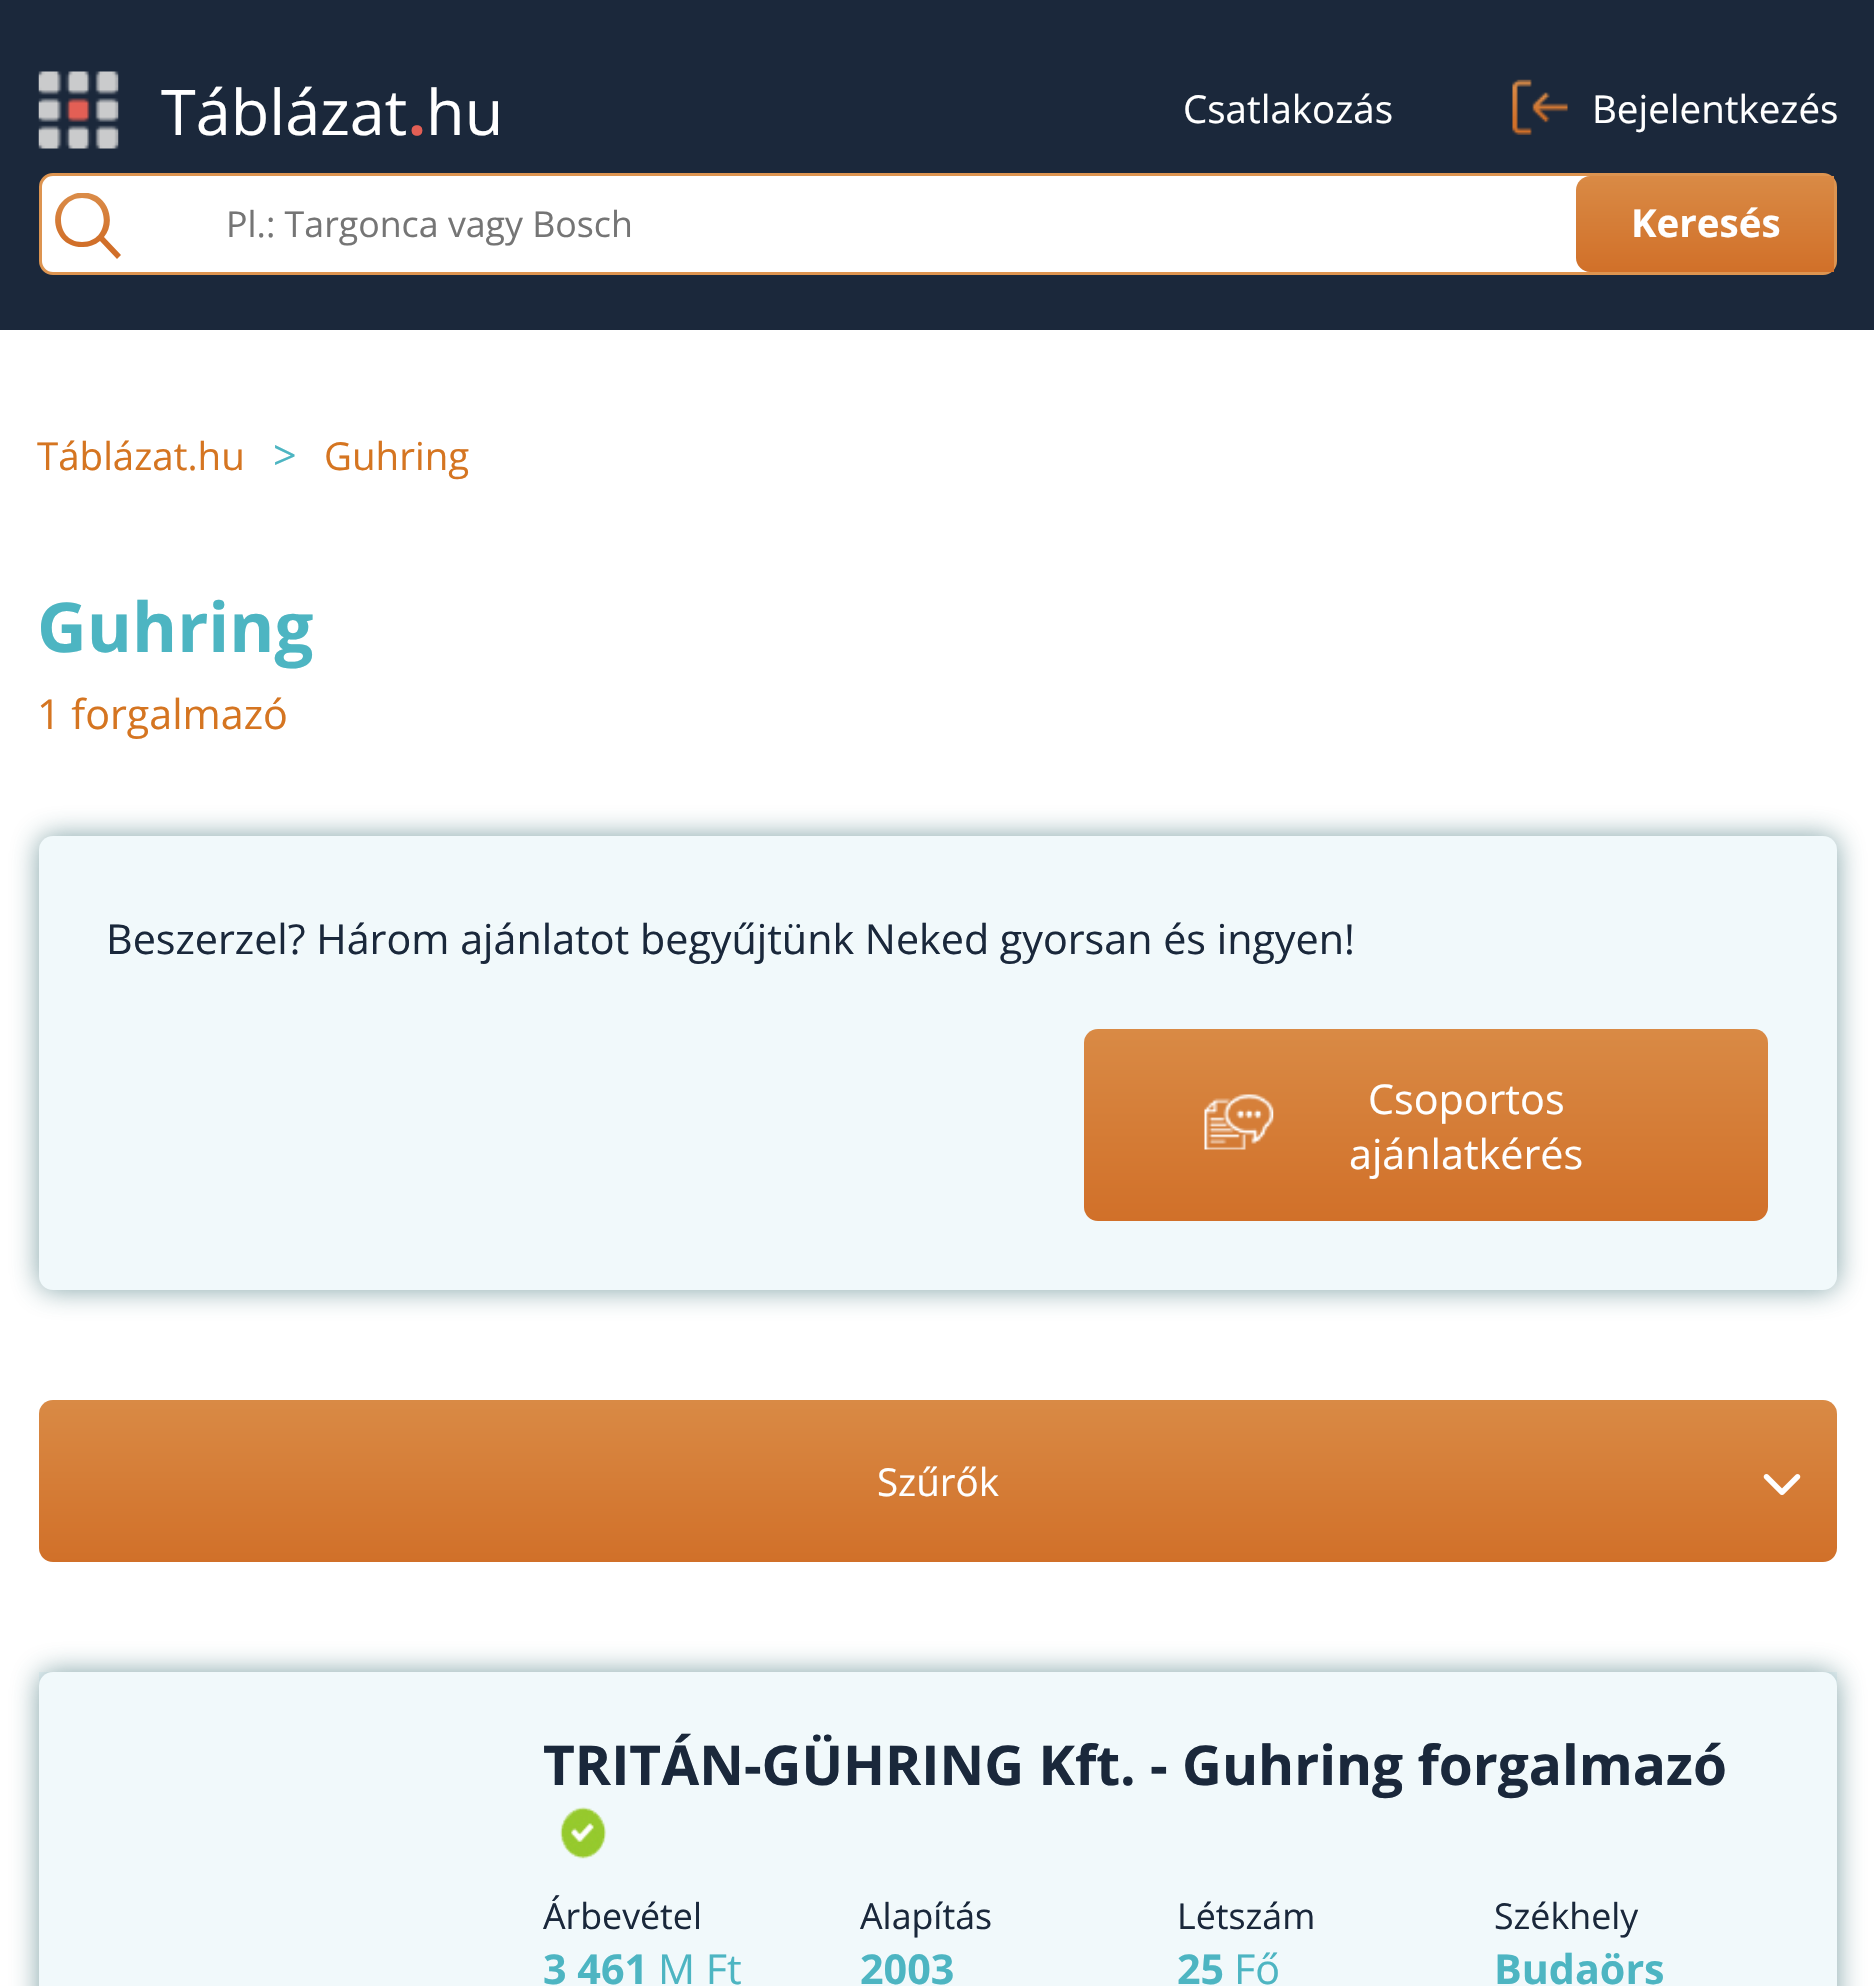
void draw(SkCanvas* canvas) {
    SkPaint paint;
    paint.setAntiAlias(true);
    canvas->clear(0xFFFFFFFF);
    paint.setColor(0xFF1B283B);
    canvas->drawRect(SkRect::MakeXYWH(0, 0, 1874, 330), paint);
    canvas->drawImageRect(SkImages::DeferredFromEncodedData(SkData::MakeFromFileName("img1.png")), SkRect::MakeXYWH(38, 71, 81, 78), SkSamplingOptions());
    SkFont font1(fontMgr->matchFamilyStyle("Open Sans", SkFontStyle::Normal()), 63);
    font1.setSubpixel(true);
    paint.setColor(0xFFFFFFFF);
    canvas->drawString("Táblázat", 161, 135, font1, paint);
    SkFont font2(fontMgr->matchFamilyStyle("Open Sans", SkFontStyle::Bold()), 63);
    font2.setSubpixel(true);
    paint.setColor(0xFFE35F55);
    canvas->drawString(".", 408, 135, font2, paint);
    paint.setColor(0xFFFFFFFF);
    canvas->drawString("hu", 426, 135, font1, paint);
    SkFont font3(fontMgr->matchFamilyStyle("Open Sans", SkFontStyle::Normal()), 38.5f);
    font3.setSubpixel(true);
    canvas->drawString("Csatlakozás", 1183, 123, font3, paint);
    canvas->drawImageRect(SkImages::DeferredFromEncodedData(SkData::MakeFromFileName("img2.png")), SkRect::MakeXYWH(1512, 79, 56, 56), SkSamplingOptions());
    canvas->drawString("Bejelentkezés", 1592, 123, font3, paint);
    canvas->drawRoundRect(SkRect::MakeXYWH(40.5f, 174.5f, 1795, 99), 12.5f, 12.5f, paint);
    paint.setStyle(SkPaint::kStroke_Style);
    paint.setStrokeWidth(3);
    paint.setColor(0xFFDD9450);
    canvas->drawRoundRect(SkRect::MakeXYWH(40.5f, 174.5f, 1795, 99), 12.5f, 12.5f, paint);
    canvas->save();
    canvas->clipRect(SkRect::MakeXYWH(55, 193, 66, 66));
    paint.setStyle(SkPaint::kFill_Style);
    {
        const SkColor colors[] = {0xFFD16F29, 0xFFDD9451};
        const float stops[] = {0.29f, 1};
        const SkPoint ends[] = {{86, 268}, {84, 180}};
        paint.setShader(SkGradientShader::MakeLinear(ends, colors, stops, 2, SkTileMode::kClamp));
        paint.setAlpha(255);
    }
    canvas->drawPath(SkPathBuilder(SkPathFillType::kEvenOdd).moveTo(104, 237).lineTo(121, 255).lineTo(117, 259).lineTo(100, 241).cubicTo(95, 245, 89, 247, 83, 247).cubicTo(53, 248, 44, 207, 72, 195).cubicTo(80, 191, 89, 192, 97, 196).cubicTo(111, 205, 114, 225, 104, 237).close().moveTo(82, 242).cubicTo(111, 242, 111, 198, 82, 198).cubicTo(54, 198, 54, 242, 82, 242).close().detach(), paint);
    canvas->restore();
    SkFont font4(fontMgr->matchFamilyStyle("Open Sans", SkFontStyle::Normal()), 35.75f);
    font4.setSubpixel(true);
    paint.setShader(nullptr);
    paint.setColor(0xFF757575);
    canvas->drawString("Pl.: Targonca vagy Bosch", 226, 237, font4, paint);
    {
        const SkColor colors[] = {0xFFD98A45, 0xFFD17029};
        const float stops[] = {0, 1};
        const SkPoint ends[] = {{1705, 176}, {1705, 272}};
        paint.setShader(SkGradientShader::MakeLinear(ends, colors, stops, 2, SkTileMode::kClamp));
        paint.setAlpha(255);
    }
    canvas->drawPath(SkPathBuilder().moveTo(1590, 176).lineTo(1834, 176).lineTo(1834, 272).lineTo(1590, 272).cubicTo(1582.5f, 272, 1576, 265.5f, 1576, 258).lineTo(1576, 190).cubicTo(1576, 182.5f, 1582.5f, 176, 1590, 176).close().detach(), paint);
    SkFont font5(fontMgr->matchFamilyStyle("Open Sans", SkFontStyle::Bold()), 38.5f);
    font5.setSubpixel(true);
    paint.setShader(nullptr);
    paint.setColor(0xFFFFFFFF);
    canvas->drawString("Keresés", 1631, 237, font5, paint);
    paint.setColor(0xFFD57521);
    canvas->drawString("Táblázat.hu", 37, 470, font3, paint);
    SkFont font6(fontMgr->matchFamilyStyle("Open Sans", SkFontStyle::Normal()), 41.25f);
    font6.setSubpixel(true);
    paint.setColor(0xFF4DB5C2);
    canvas->drawString(">", 273, 470, font6, paint);
    paint.setColor(0xFFD57521);
    canvas->drawString("Guhring", 324, 470, font3, paint);
    SkFont font7(fontMgr->matchFamilyStyle("Open Sans", SkFontStyle::Bold()), 68.75f);
    font7.setSubpixel(true);
    paint.setColor(0xFF4DB5C2);
    canvas->drawString("Guhring", 37, 652, font7, paint);
    paint.setColor(0xFFD57521);
    canvas->drawString("1 forgalmazó", 37, 729, font6, paint);
    paint.setColor(0x94255F66);
    paint.setMaskFilter(SkMaskFilter::MakeBlur(kNormal_SkBlurStyle, 14));
    canvas->drawRoundRect(SkRect::MakeXYWH(39, 836, 1798, 454), 14, 14, paint);
    paint.setMaskFilter(nullptr);
    paint.setColor(0xFFF1F9FB);
    canvas->drawRoundRect(SkRect::MakeXYWH(39, 836, 1798, 454), 14, 14, paint);
    paint.setColor(0xFF1A283B);
    canvas->drawString("Beszerzel? Három ajánlatot begyűjtünk Neked gyorsan és ingyen!", 106, 954, font6, paint);
    {
        const SkColor colors[] = {0xFFD98A45, 0xFFD17029};
        const float stops[] = {0, 1};
        const SkPoint ends[] = {{1426, 1029}, {1426, 1221}};
        paint.setShader(SkGradientShader::MakeLinear(ends, colors, stops, 2, SkTileMode::kClamp));
        paint.setAlpha(255);
    }
    canvas->drawRoundRect(SkRect::MakeXYWH(1084, 1029, 684, 192), 14, 14, paint);
    canvas->drawImageRect(SkImages::DeferredFromEncodedData(SkData::MakeFromFileName("img3.png")), SkRect::MakeXYWH(1204, 1094, 70, 56), SkSamplingOptions());
    paint.setShader(nullptr);
    paint.setColor(0xFFFFFFFF);
    canvas->drawString("Csoportos", 1368, 1114, font6, paint);
    canvas->drawString("ajánlatkérés", 1349, 1169, font6, paint);
    {
        const SkColor colors[] = {0xFFD98A45, 0xFFD17029};
        const float stops[] = {0, 1};
        const SkPoint ends[] = {{938, 1400}, {938, 1562}};
        paint.setShader(SkGradientShader::MakeLinear(ends, colors, stops, 2, SkTileMode::kClamp));
        paint.setAlpha(255);
    }
    canvas->drawRoundRect(SkRect::MakeXYWH(39, 1400, 1798, 162), 14, 14, paint);
    paint.setShader(nullptr);
    paint.setColor(0xFFFFFFFF);
    canvas->drawString("Szűrők", 877, 1496, font3, paint);
    canvas->drawImageRect(SkImages::DeferredFromEncodedData(SkData::MakeFromFileName("img4.png")), SkRect::MakeXYWH(1763, 1474, 38, 21), SkSamplingOptions());
    paint.setColor(0xFFF1F9FB);
    canvas->drawRect(SkRect::MakeXYWH(39, 1672, 1798, 14), paint);
    paint.setColor(0x94255F66);
    paint.setMaskFilter(SkMaskFilter::MakeBlur(kNormal_SkBlurStyle, 14));
    canvas->drawRoundRect(SkRect::MakeXYWH(39, 1672, 1798, 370), 14, 14, paint);
    paint.setMaskFilter(nullptr);
    paint.setColor(0xFFF1F9FB);
    canvas->drawRoundRect(SkRect::MakeXYWH(39, 1672, 1798, 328), 14, 14, paint);
    SkFont font8(fontMgr->matchFamilyStyle("Open Sans", SkFontStyle::Bold()), 55);
    font8.setSubpixel(true);
    paint.setColor(0xFF1A283B);
    canvas->drawString("TRITÁN-GÜHRING Kft. - Guhring forgalmazó", 543, 1785, font8, paint);
    canvas->drawImageRect(SkImages::DeferredFromEncodedData(SkData::MakeFromFileName("img5.png")), SkRect::MakeXYWH(560, 1807, 47, 52), SkSamplingOptions());
    canvas->drawString("Árbevétel", 543, 1929, font4, paint);
    SkFont font9(fontMgr->matchFamilyStyle("Open Sans", SkFontStyle::Bold()), 41.25f);
    font9.setSubpixel(true);
    paint.setColor(0xFF4DB5C2);
    canvas->drawString("3 461", 543, 1984, font9, paint);
    canvas->drawString("M Ft", 658, 1984, font6, paint);
    paint.setColor(0xFF1A283B);
    canvas->drawString("Alapítás", 860, 1929, font4, paint);
    paint.setColor(0xFF4DB5C2);
    canvas->drawString("2003", 860, 1984, font9, paint);
    paint.setColor(0xFF1A283B);
    canvas->drawString("Létszám", 1177, 1929, font4, paint);
    paint.setColor(0xFF4DB5C2);
    canvas->drawString("25", 1177, 1984, font9, paint);
    canvas->drawString("Fő", 1234, 1984, font6, paint);
    paint.setColor(0xFF1A283B);
    canvas->drawString("Székhely", 1494, 1929, font4, paint);
    paint.setColor(0xFF4DB5C2);
    canvas->drawString("Budaörs", 1494, 1984, font9, paint);
}
